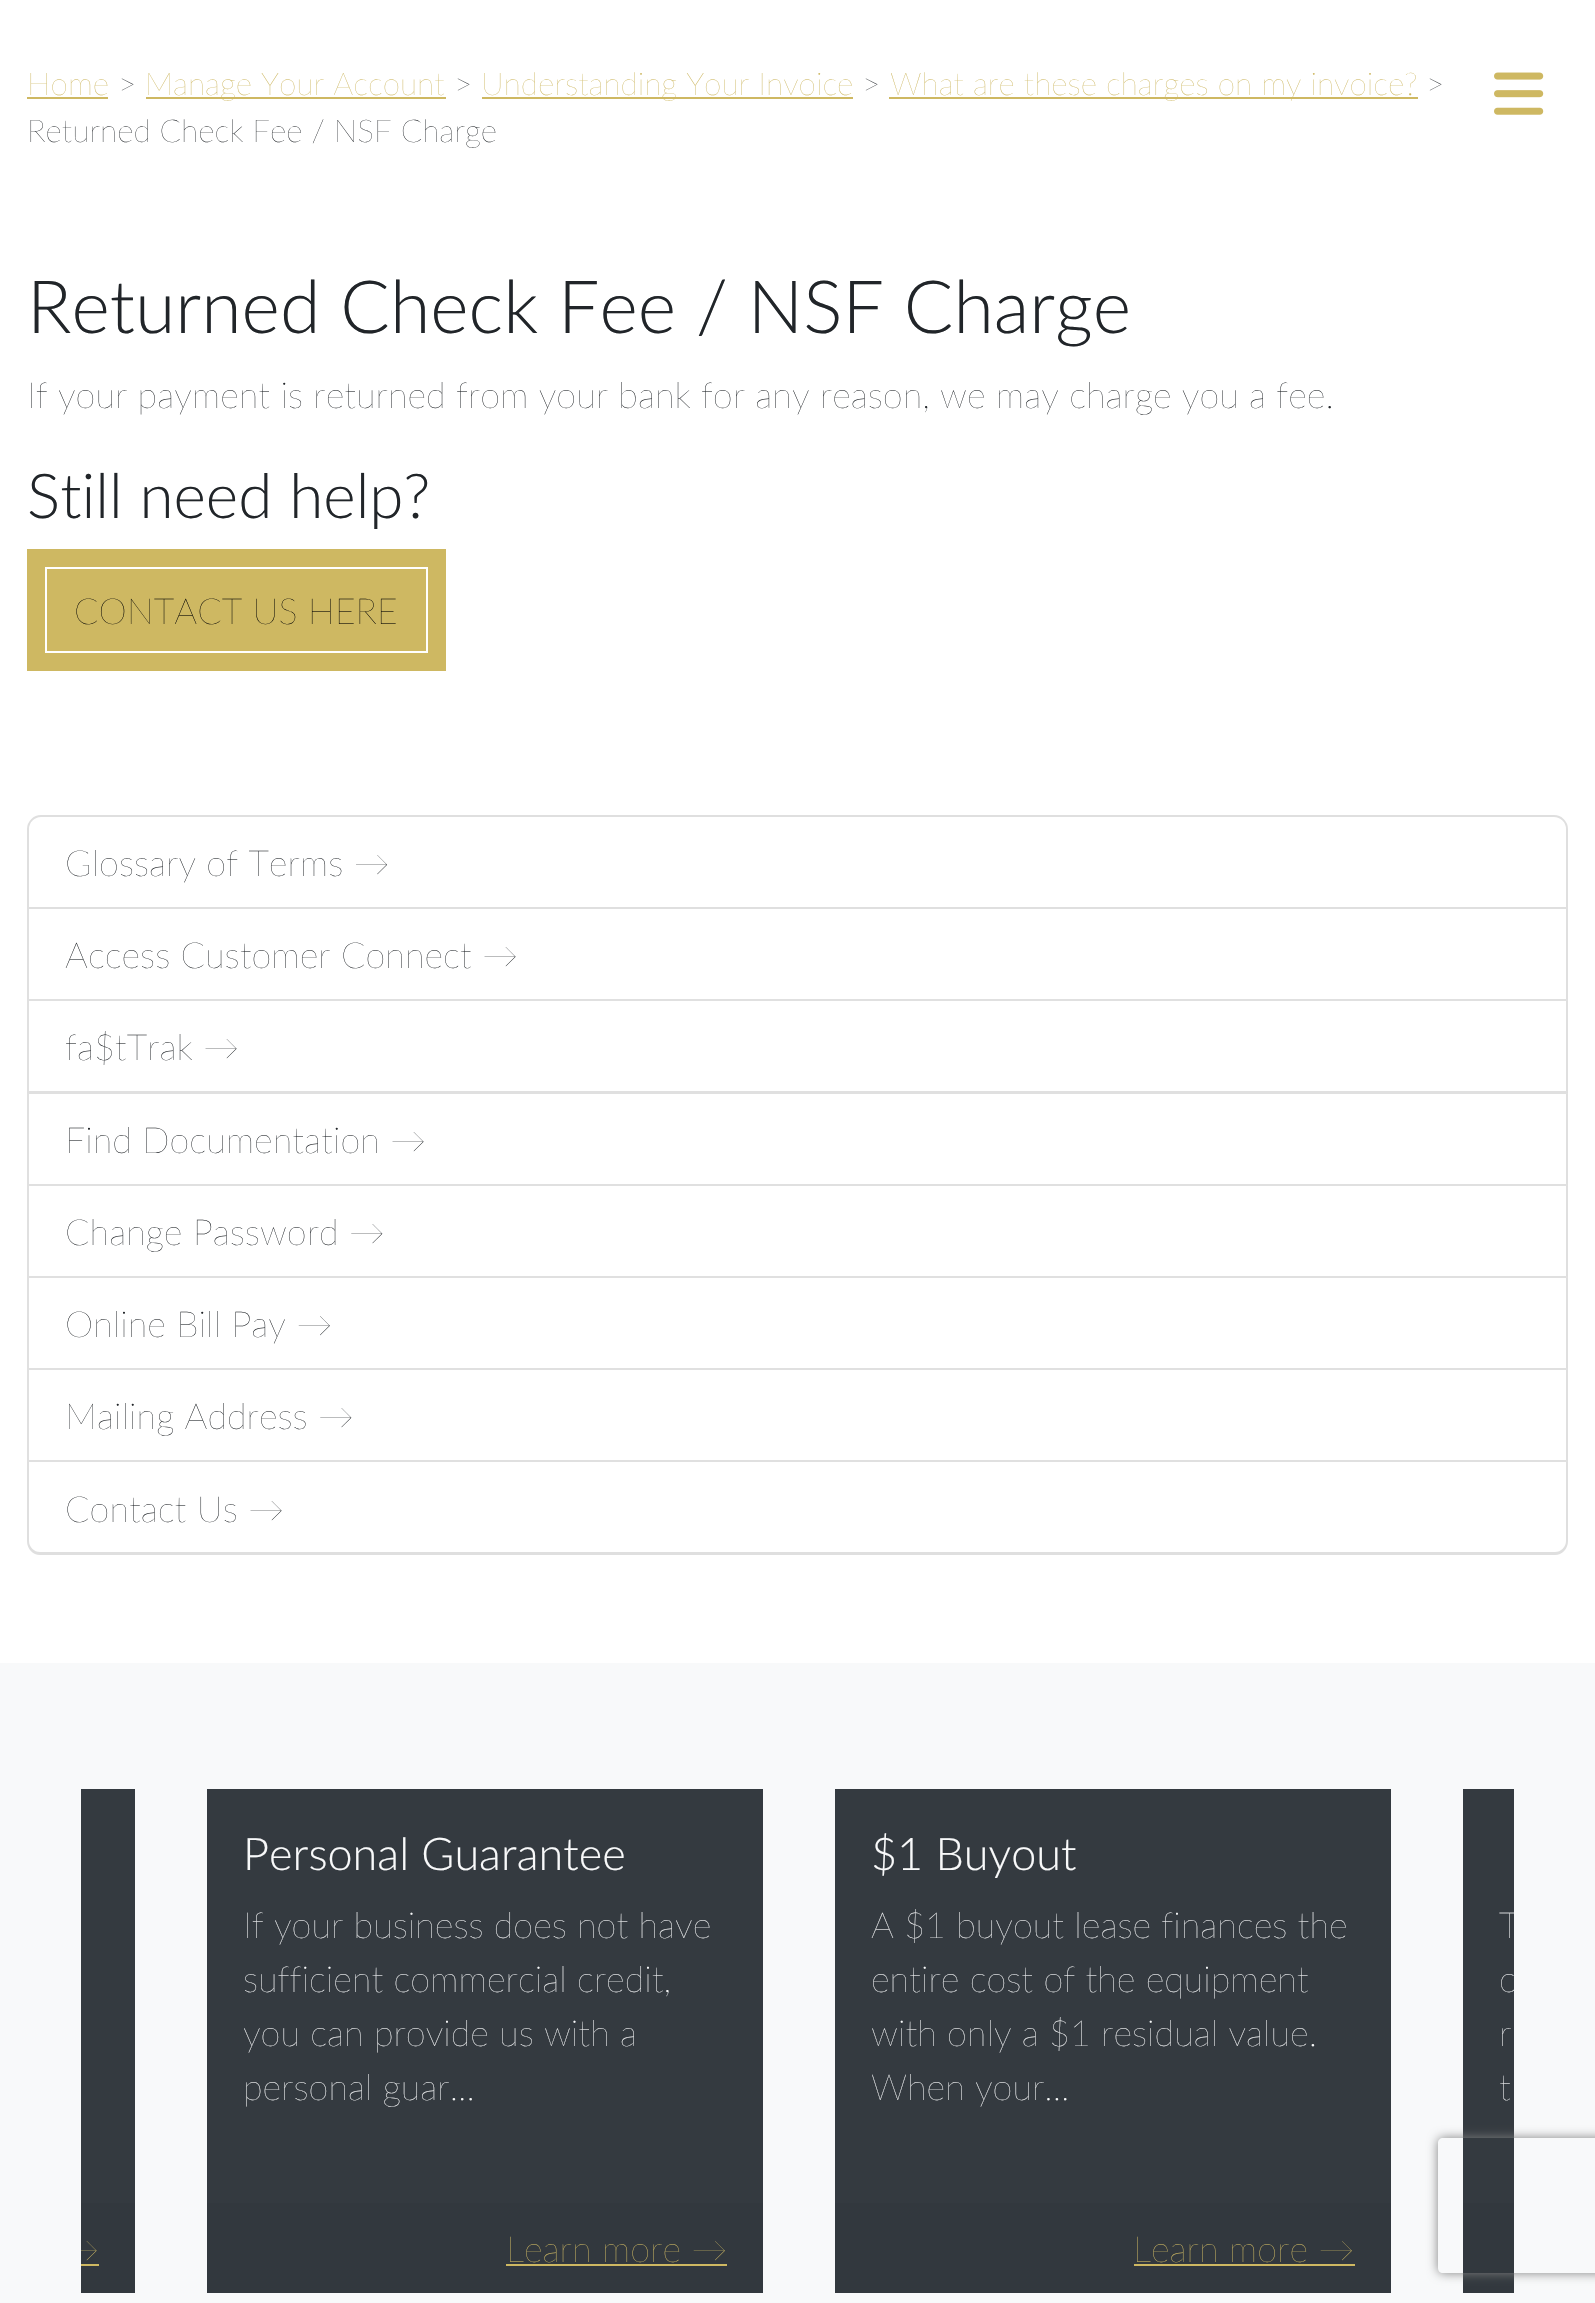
void draw(SkCanvas* canvas) {
    SkPaint paint;
    paint.setAntiAlias(true);
    canvas->clear(0xFFFFFFFF);
    SkFont font1(fontMgr->matchFamilyStyle("Lato", SkFontStyle(200, SkFontStyle::kNormal_Width, SkFontStyle::kUpright_Slant)), 31.5f);
    font1.setSubpixel(true);
    paint.setColor(0xFFCEB862);
    canvas->drawString("Home", 27, 95, font1, paint);
    canvas->drawRect(SkRect::MakeXYWH(27, 97, 81, 2), paint);
    paint.setColor(0xFF212529);
    canvas->drawString(">", 118, 95, font1, paint);
    paint.setColor(0xFFCEB862);
    canvas->drawRect(SkRect::MakeXYWH(146, 97, 300, 2), paint);
    canvas->drawString("Manage Your Account", 145, 95, font1, paint);
    paint.setColor(0xFF212529);
    canvas->drawString(">", 454, 95, font1, paint);
    paint.setColor(0xFFCEB862);
    canvas->drawRect(SkRect::MakeXYWH(482, 97, 371, 2), paint);
    canvas->drawString("Understanding Your Invoice", 481, 95, font1, paint);
    paint.setColor(0xFF212529);
    canvas->drawString(">", 862, 95, font1, paint);
    paint.setColor(0xFFCEB862);
    canvas->drawRect(SkRect::MakeXYWH(889, 97, 529, 2), paint);
    canvas->drawString("What are these charges on my invoice?", 890, 95, font1, paint);
    paint.setColor(0xFF212529);
    canvas->drawString(">", 1426, 95, font1, paint);
    canvas->drawString("Returned Check Fee / NSF Charge", 27, 142, font1, paint);
    SkFont font2(fontMgr->matchFamilyStyle("Lato", SkFontStyle(300, SkFontStyle::kNormal_Width, SkFontStyle::kUpright_Slant)), 73.4f);
    font2.setSubpixel(true);
    canvas->drawString("Returned Check Fee / NSF Charge", 27, 333, font2, paint);
    SkFont font3(fontMgr->matchFamilyStyle("Lato", SkFontStyle(200, SkFontStyle::kNormal_Width, SkFontStyle::kUpright_Slant)), 36);
    font3.setSubpixel(true);
    canvas->drawString("If your payment is returned from your bank for any reason, we may charge you a fee.", 27, 408, font3, paint);
    SkFont font4(fontMgr->matchFamilyStyle("Lato", SkFontStyle(300, SkFontStyle::kNormal_Width, SkFontStyle::kUpright_Slant)), 62);
    font4.setSubpixel(true);
    canvas->drawString("Still need help?", 27, 518, font4, paint);
    paint.setStyle(SkPaint::kStroke_Style);
    paint.setStrokeWidth(18);
    paint.setColor(0xFFCEB862);
    canvas->drawRect(SkRect::MakeXYWH(36, 558, 401, 104), paint);
    paint.setStyle(SkPaint::kFill_Style);
    canvas->drawRect(SkRect::MakeXYWH(47, 569, 379, 82), paint);
    paint.setColor(0xFF000000);
    canvas->drawString("CONTACT US HERE", 74, 624, font3, paint);
    paint.setStyle(SkPaint::kStroke_Style);
    paint.setStrokeWidth(2);
    paint.setColor(0xFFDFDFDF);
    canvas->drawPath(SkPathBuilder().moveTo(41, 816).lineTo(1554, 816).cubicTo(1561, 816, 1567, 822, 1567, 829).lineTo(1567, 908).lineTo(28, 908).lineTo(28, 829).cubicTo(28, 822, 34, 816, 41, 816).close().detach(), paint);
    paint.setStyle(SkPaint::kFill_Style);
    paint.setColor(0xFF212529);
    canvas->drawString("Glossary of Terms →", 65, 876, font3, paint);
    paint.setColor(0xFFDFDFDF);
    canvas->drawPath(SkPathBuilder().moveTo(1568, 909).lineTo(1568, 1001).lineTo(1566, 999).lineTo(1566, 909).close().detach(), paint);
    paint.setColor(0x1F000000);
    canvas->drawPath(SkPathBuilder().moveTo(1568, 1001).lineTo(27, 1001).lineTo(29, 999).lineTo(1566, 999).close().detach(), paint);
    canvas->drawPath(SkPathBuilder().moveTo(27, 1001).lineTo(27, 909).lineTo(29, 909).lineTo(29, 999).close().detach(), paint);
    paint.setColor(0xFF212529);
    canvas->drawString("Access Customer Connect →", 65, 968, font3, paint);
    paint.setColor(0xFFDFDFDF);
    canvas->drawPath(SkPathBuilder().moveTo(1568, 1001).lineTo(1568, 1094).lineTo(1566, 1091).lineTo(1566, 1001).close().detach(), paint);
    paint.setColor(0x1F000000);
    canvas->drawPath(SkPathBuilder().moveTo(1568, 1094).lineTo(27, 1094).lineTo(29, 1091).lineTo(1566, 1091).close().detach(), paint);
    canvas->drawPath(SkPathBuilder().moveTo(27, 1094).lineTo(27, 1001).lineTo(29, 1001).lineTo(29, 1091).close().detach(), paint);
    paint.setColor(0xFF212529);
    canvas->drawString("fa$tTrak →", 65, 1060, font3, paint);
    paint.setColor(0xFFDFDFDF);
    canvas->drawPath(SkPathBuilder().moveTo(1568, 1094).lineTo(1568, 1186).lineTo(1566, 1184).lineTo(1566, 1094).close().detach(), paint);
    paint.setColor(0x1F000000);
    canvas->drawPath(SkPathBuilder().moveTo(1568, 1186).lineTo(27, 1186).lineTo(29, 1184).lineTo(1566, 1184).close().detach(), paint);
    canvas->drawPath(SkPathBuilder().moveTo(27, 1186).lineTo(27, 1094).lineTo(29, 1094).lineTo(29, 1184).close().detach(), paint);
    paint.setColor(0xFF212529);
    canvas->drawString("Find Documentation →", 65, 1153, font3, paint);
    paint.setColor(0xFFDFDFDF);
    canvas->drawPath(SkPathBuilder().moveTo(1568, 1186).lineTo(1568, 1278).lineTo(1566, 1276).lineTo(1566, 1186).close().detach(), paint);
    paint.setColor(0x1F000000);
    canvas->drawPath(SkPathBuilder().moveTo(1568, 1278).lineTo(27, 1278).lineTo(29, 1276).lineTo(1566, 1276).close().detach(), paint);
    canvas->drawPath(SkPathBuilder().moveTo(27, 1278).lineTo(27, 1186).lineTo(29, 1186).lineTo(29, 1276).close().detach(), paint);
    paint.setColor(0xFF212529);
    canvas->drawString("Change Password →", 65, 1245, font3, paint);
    paint.setColor(0xFFDFDFDF);
    canvas->drawPath(SkPathBuilder().moveTo(1568, 1278).lineTo(1568, 1370).lineTo(1566, 1368).lineTo(1566, 1278).close().detach(), paint);
    paint.setColor(0x1F000000);
    canvas->drawPath(SkPathBuilder().moveTo(1568, 1370).lineTo(27, 1370).lineTo(29, 1368).lineTo(1566, 1368).close().detach(), paint);
    canvas->drawPath(SkPathBuilder().moveTo(27, 1370).lineTo(27, 1278).lineTo(29, 1278).lineTo(29, 1368).close().detach(), paint);
    paint.setColor(0xFF212529);
    canvas->drawString("Online Bill Pay →", 65, 1337, font3, paint);
    paint.setColor(0xFFDFDFDF);
    canvas->drawPath(SkPathBuilder().moveTo(1568, 1370).lineTo(1568, 1462).lineTo(1566, 1460).lineTo(1566, 1370).close().detach(), paint);
    paint.setColor(0x1F000000);
    canvas->drawPath(SkPathBuilder().moveTo(1568, 1462).lineTo(27, 1462).lineTo(29, 1460).lineTo(1566, 1460).close().detach(), paint);
    canvas->drawPath(SkPathBuilder().moveTo(27, 1462).lineTo(27, 1370).lineTo(29, 1370).lineTo(29, 1460).close().detach(), paint);
    paint.setColor(0xFF212529);
    canvas->drawString("Mailing Address →", 65, 1429, font3, paint);
    paint.setColor(0xFFDFDFDF);
    canvas->drawPath(SkPathBuilder(SkPathFillType::kEvenOdd).moveTo(27, 1462).lineTo(1568, 1462).lineTo(1568, 1541).cubicTo(1568, 1549, 1562, 1555, 1555, 1555).lineTo(40, 1555).cubicTo(33, 1555, 27, 1549, 27, 1541).close().moveTo(29, 1462).lineTo(1566, 1462).lineTo(1566, 1541).cubicTo(1566, 1547, 1561, 1552, 1555, 1552).lineTo(40, 1552).cubicTo(34, 1552, 29, 1547, 29, 1541).close().detach(), paint);
    paint.setColor(0xFF212529);
    canvas->drawString("Contact Us →", 65, 1522, font3, paint);
    paint.setColor(0xFFF8F9FA);
    canvas->drawRect(SkRect::MakeXYWH(0, 1663, 1595, 640), paint);
    paint.setColor(0xFF343A40);
    canvas->drawRect(SkRect::MakeXYWH(207, 1789, 556, 414), paint);
    SkFont font5(fontMgr->matchFamilyStyle("Lato", SkFontStyle(300, SkFontStyle::kNormal_Width, SkFontStyle::kUpright_Slant)), 45);
    font5.setSubpixel(true);
    paint.setColor(0xFFF8F9FA);
    canvas->drawString("Personal Guarantee", 243, 1870, font5, paint);
    canvas->drawString("If your business does not have", 243, 1938, font3, paint);
    canvas->drawString("sufficient commercial credit,", 243, 1992, font3, paint);
    canvas->drawString("you can provide us with a", 243, 2046, font3, paint);
    canvas->drawString("personal guar...", 243, 2100, font3, paint);
    paint.setColor(0xFF32383E);
    canvas->drawRect(SkRect::MakeXYWH(207, 2203, 556, 90), paint);
    paint.setColor(0xFFCEB862);
    canvas->drawString("Learn more →", 506, 2262, font3, paint);
    canvas->drawRect(SkRect::MakeXYWH(506, 2264, 221, 2), paint);
    paint.setColor(0xFF343A40);
    canvas->drawRect(SkRect::MakeXYWH(835, 1789, 556, 414), paint);
    paint.setColor(0xFFF8F9FA);
    canvas->drawString("$1 Buyout", 871, 1870, font5, paint);
    canvas->drawString("A $1 buyout lease finances the", 871, 1938, font3, paint);
    canvas->drawString("entire cost of the equipment", 871, 1992, font3, paint);
    canvas->drawString("with only a $1 residual value.", 871, 2046, font3, paint);
    canvas->drawString("When your...", 871, 2100, font3, paint);
    paint.setColor(0xFF32383E);
    canvas->drawRect(SkRect::MakeXYWH(835, 2203, 556, 90), paint);
    paint.setColor(0xFFCEB862);
    canvas->drawString("Learn more →", 1133, 2262, font3, paint);
    canvas->drawRect(SkRect::MakeXYWH(1134, 2264, 221, 2), paint);
    paint.setColor(0xFF343A40);
    canvas->drawRect(SkRect::MakeXYWH(1463, 1789, 51, 414), paint);
    canvas->save();
    canvas->clipRect(SkRect::MakeXYWH(81, 1789, 1433, 504));
    paint.setColor(0xFFF8F9FA);
    canvas->drawString("T", 1499, 1938, font3, paint);
    canvas->restore();
    canvas->drawString("c", 1499, 1992, font3, paint);
    canvas->drawString("r", 1499, 2046, font3, paint);
    canvas->drawString("t", 1499, 2100, font3, paint);
    paint.setColor(0xFF32383E);
    canvas->drawRect(SkRect::MakeXYWH(1463, 2203, 51, 90), paint);
    paint.setColor(0xFF343A40);
    canvas->drawRect(SkRect::MakeXYWH(81, 1789, 54, 414), paint);
    paint.setColor(0xFF32383E);
    canvas->drawRect(SkRect::MakeXYWH(81, 2203, 54, 90), paint);
    canvas->save();
    canvas->clipRect(SkRect::MakeXYWH(81, 1789, 1433, 504));
    paint.setColor(0xFFCEB862);
    canvas->drawString("→", 63, 2262, font3, paint);
    canvas->restore();
    canvas->drawRect(SkRect::MakeXYWH(81, 2264, 18, 2), paint);
    canvas->drawImageRect(SkImages::DeferredFromEncodedData(SkData::MakeFromFileName("img1.png")), SkRect::MakeXYWH(1494, 72, 50, 43), SkSamplingOptions());
    canvas->save();
    canvas->clipPath(SkPathBuilder(SkPathFillType::kEvenOdd).moveTo(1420, 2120).lineTo(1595, 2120).lineTo(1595, 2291).lineTo(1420, 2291).close().moveTo(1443, 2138).lineTo(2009, 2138).cubicTo(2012, 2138, 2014, 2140, 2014, 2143).lineTo(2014, 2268).cubicTo(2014, 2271, 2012, 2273, 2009, 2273).lineTo(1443, 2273).cubicTo(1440, 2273, 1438, 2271, 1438, 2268).lineTo(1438, 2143).cubicTo(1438, 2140, 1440, 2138, 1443, 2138).close().detach(), true);
    paint.setColor(0xFF808080);
    paint.setMaskFilter(SkMaskFilter::MakeBlur(kNormal_SkBlurStyle, 5.5f));
    canvas->drawRoundRect(SkRect::MakeXYWH(1438, 2138, 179, 135), 5, 5, paint);
    paint.setMaskFilter(nullptr);
    canvas->restore();
}
